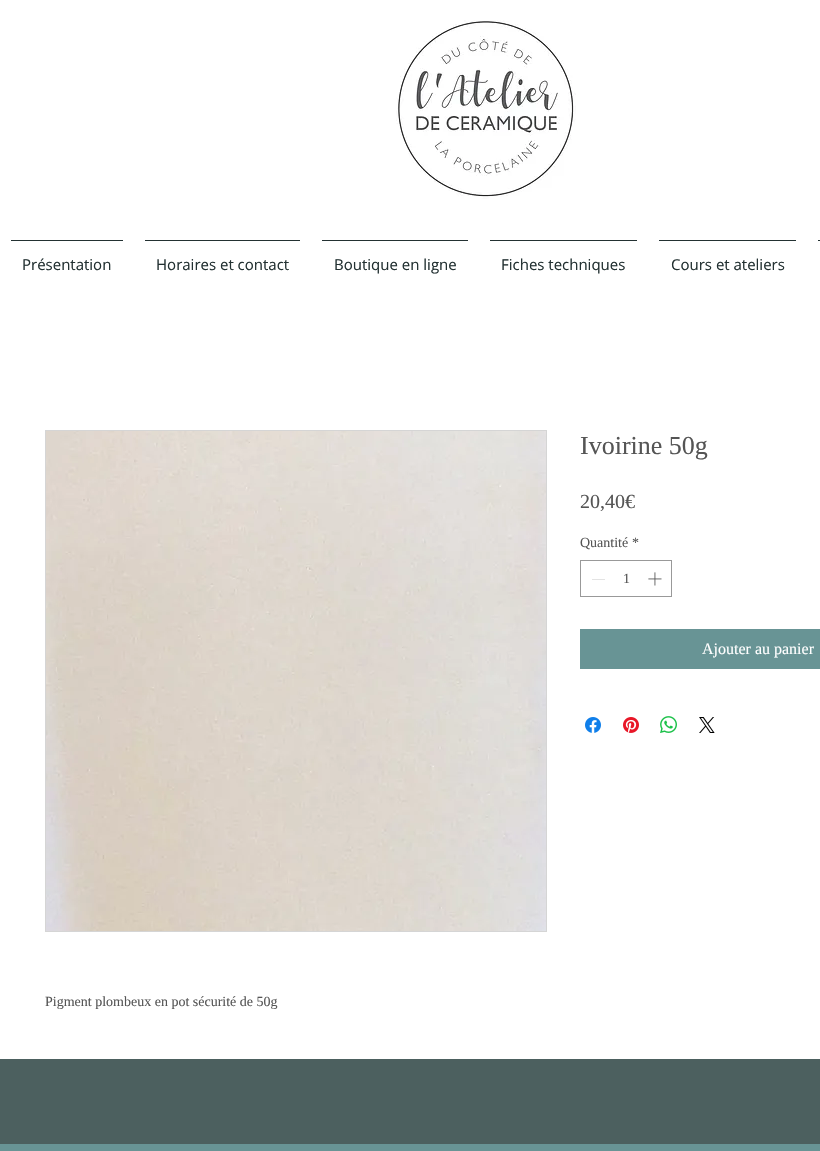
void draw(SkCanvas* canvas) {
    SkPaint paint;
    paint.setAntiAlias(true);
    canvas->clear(0xFFFFFFFF);
    canvas->drawImageRect(SkImages::DeferredFromEncodedData(SkData::MakeFromFileName("img1.png")), SkRect::MakeXYWH(396, 20, 180, 179), SkSamplingOptions());
    paint.setColor(0xFF233132);
    canvas->drawRect(SkRect::MakeXYWH(818, 240, 2, 1), paint);
    canvas->drawRect(SkRect::MakeXYWH(11, 240, 112, 1), paint);
    SkFont font1(fontMgr->matchFamilyStyle("Open Sans", SkFontStyle::Normal()), 15);
    font1.setSubpixel(true);
    canvas->drawString("Présentation", 22, 270, font1, paint);
    canvas->drawRect(SkRect::MakeXYWH(145, 240, 155, 1), paint);
    canvas->drawString("Horaires et contact", 156, 270, font1, paint);
    canvas->drawRect(SkRect::MakeXYWH(322, 240, 146, 1), paint);
    canvas->drawString("Boutique en ligne", 334, 270, font1, paint);
    canvas->drawRect(SkRect::MakeXYWH(490, 240, 147, 1), paint);
    canvas->drawString("Fiches techniques", 501, 270, font1, paint);
    canvas->drawRect(SkRect::MakeXYWH(659, 240, 137, 1), paint);
    canvas->drawString("Cours et ateliers", 671, 270, font1, paint);
    SkFont font2(fontMgr->matchFamilyStyle("Liberation Serif", SkFontStyle::Normal()), 26);
    font2.setSubpixel(true);
    paint.setColor(0xFF555555);
    canvas->drawString("Ivoirine 50g", 580, 454, font2, paint);
    SkFont font3(fontMgr->matchFamilyStyle("Liberation Serif", SkFontStyle::Normal()), 20);
    font3.setSubpixel(true);
    canvas->drawString("20,40€", 580, 508, font3, paint);
    SkFont font4(fontMgr->matchFamilyStyle("Liberation Serif", SkFontStyle::Normal()), 14);
    font4.setSubpixel(true);
    canvas->drawString("Quantité", 580, 547, font4, paint);
    canvas->drawString("*", 632, 547, font4, paint);
    paint.setStyle(SkPaint::kStroke_Style);
    paint.setStrokeWidth(1);
    paint.setColor(0xFF999999);
    canvas->drawRect(SkRect::MakeXYWH(580.5f, 560.5f, 91, 36), paint);
    paint.setStyle(SkPaint::kFill_Style);
    paint.setColor(0xFFE3E3E3);
    canvas->drawRect(SkRect::MakeXYWH(592, 579, 13, 1), paint);
    paint.setColor(0xFF555555);
    canvas->drawString("1", 623, 583, font4, paint);
    canvas->drawImageRect(SkImages::DeferredFromEncodedData(SkData::MakeFromFileName("img2.png")), SkRect::MakeXYWH(648, 572, 14, 14), SkSamplingOptions());
    paint.setColor(0xFF689495);
    canvas->drawRect(SkRect::MakeXYWH(580, 629, 240, 40), paint);
    SkFont font5(fontMgr->matchFamilyStyle("Liberation Serif", SkFontStyle::Normal()), 16);
    font5.setSubpixel(true);
    paint.setColor(0xFFFFFFFF);
    canvas->drawString("Ajouter au panier", 702, 654, font5, paint);
    canvas->drawImageRect(SkImages::DeferredFromEncodedData(SkData::MakeFromFileName("img3.png")), SkRect::MakeXYWH(585, 717, 16, 16), SkSamplingOptions());
    canvas->drawImageRect(SkImages::DeferredFromEncodedData(SkData::MakeFromFileName("img4.png")), SkRect::MakeXYWH(623, 717, 16, 16), SkSamplingOptions());
    canvas->drawImageRect(SkImages::DeferredFromEncodedData(SkData::MakeFromFileName("img5.png")), SkRect::MakeXYWH(660, 716, 17, 17), SkSamplingOptions());
    canvas->drawImageRect(SkImages::DeferredFromEncodedData(SkData::MakeFromFileName("img6.png")), SkRect::MakeXYWH(699, 717, 16, 16), SkSamplingOptions());
    paint.setStyle(SkPaint::kStroke_Style);
    paint.setColor(0xFFD5D5D5);
    canvas->drawRect(SkRect::MakeXYWH(45.5f, 430.5f, 501, 501), paint);
    canvas->drawImageRect(SkImages::DeferredFromEncodedData(SkData::MakeFromFileName("img7.png")), SkRect::MakeXYWH(46, 431, 500, 500), SkSamplingOptions());
    paint.setStyle(SkPaint::kFill_Style);
    paint.setColor(0xFF555555);
    canvas->drawString("Pigment plombeux en pot sécurité de 50g", 45, 1006, font4, paint);
    paint.setColor(0xFF4C605F);
    canvas->drawRect(SkRect::MakeXYWH(0, 1059, 820, 85), paint);
    paint.setColor(0xFF689495);
    canvas->drawRect(SkRect::MakeXYWH(0, 1144, 820, 7), paint);
}
